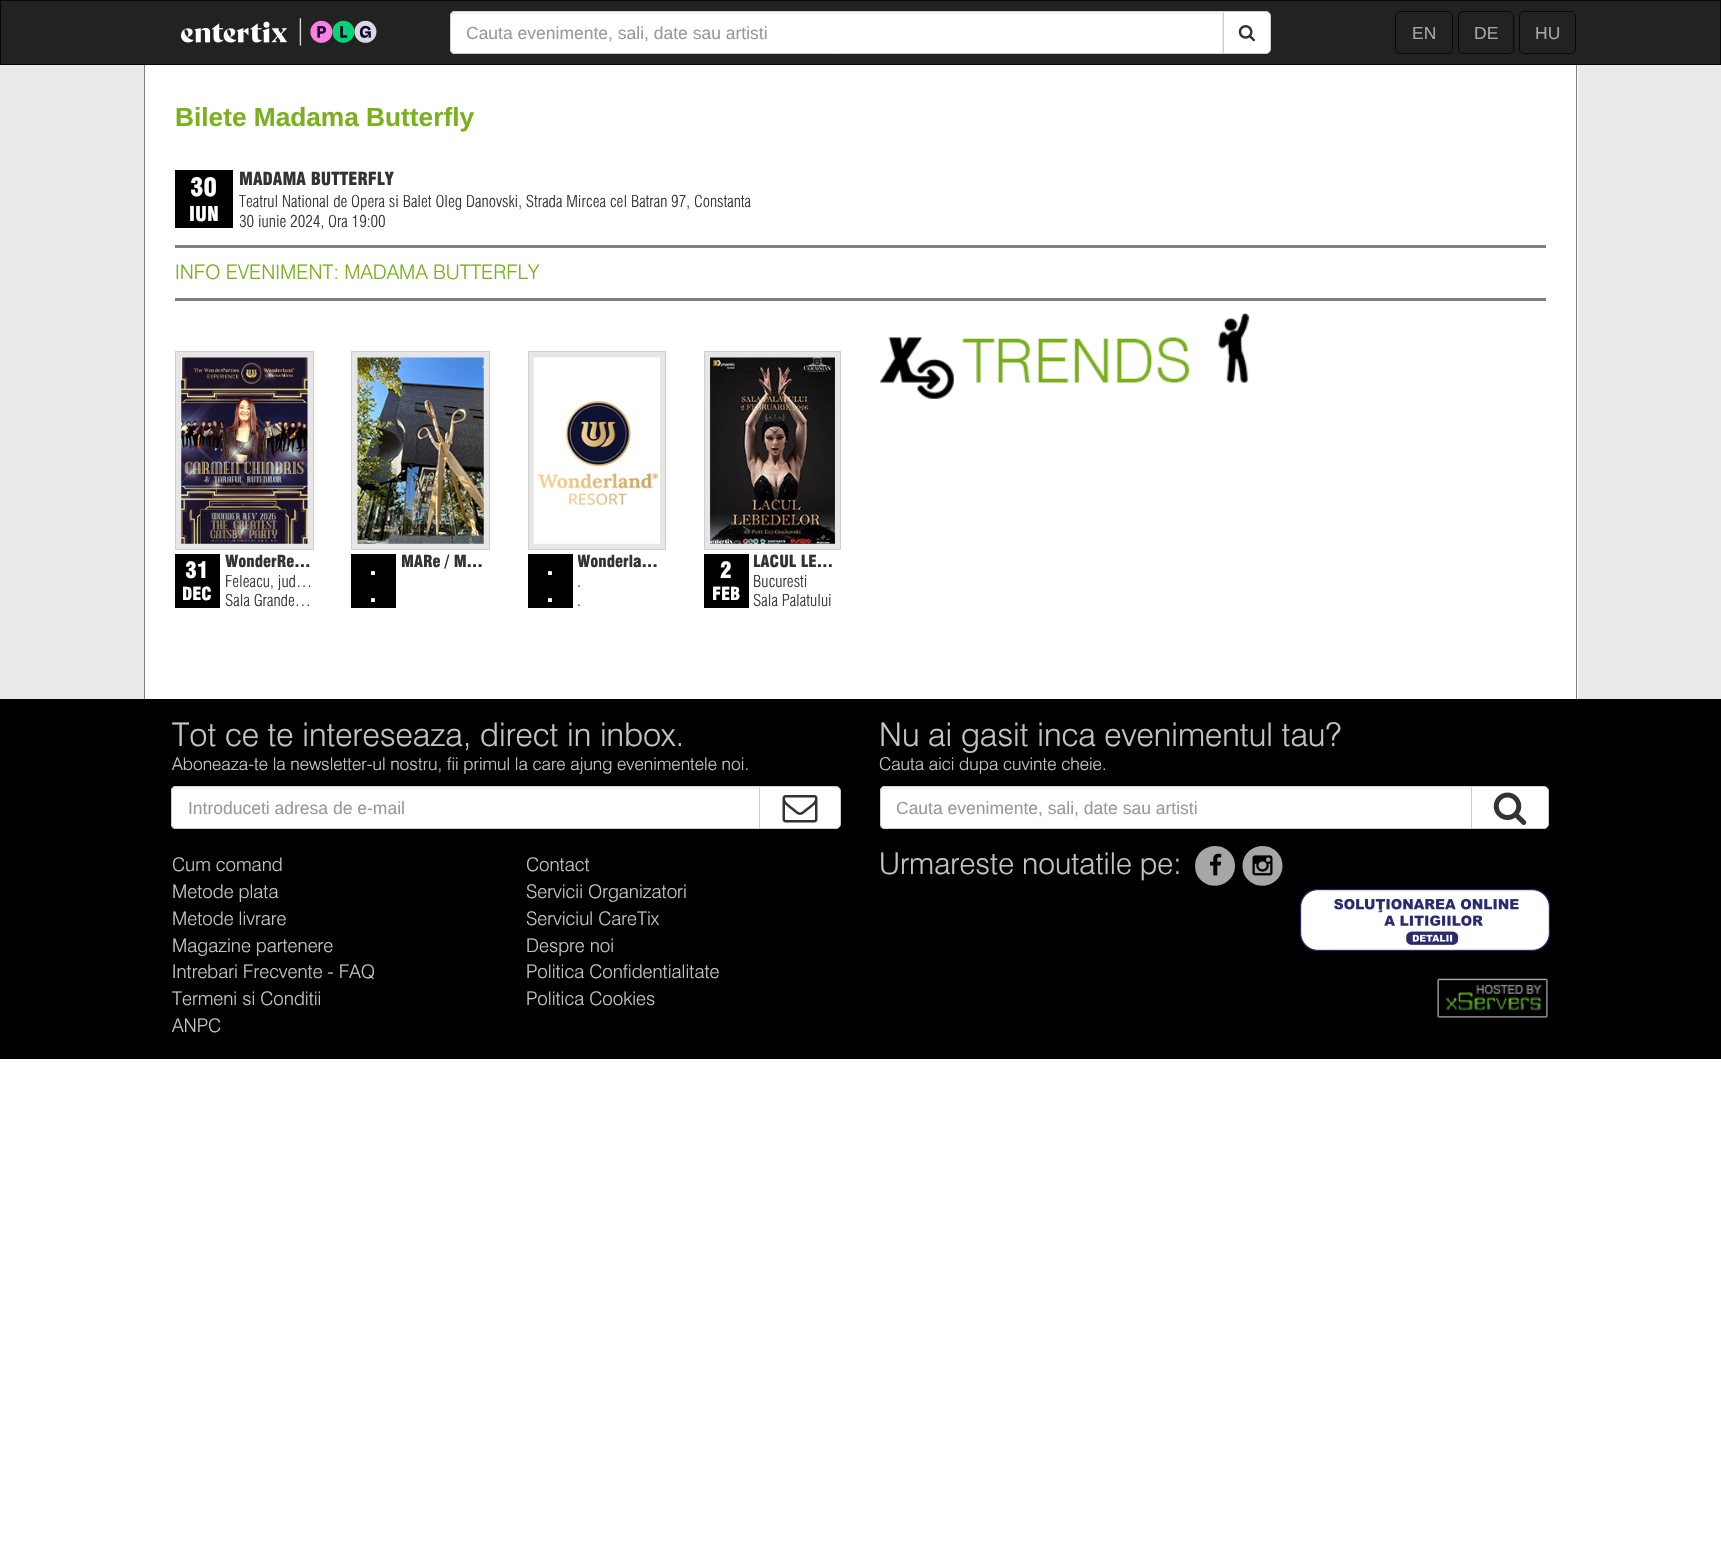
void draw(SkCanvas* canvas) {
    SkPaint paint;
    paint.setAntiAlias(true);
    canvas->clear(0xFFFFFFFF);
    paint.setColor(0xFFEAEAEA);
    canvas->drawRect(SkRect::MakeXYWH(0, 65, 1721, 634), paint);
    paint.setColor(0xFF222222);
    canvas->drawRect(SkRect::MakeXYWH(0.5f, 0.5f, 1720, 64), paint);
    paint.setStyle(SkPaint::kStroke_Style);
    paint.setStrokeWidth(1);
    paint.setColor(0xFF080808);
    canvas->drawRect(SkRect::MakeXYWH(0.5f, 0.5f, 1720, 64), paint);
    canvas->drawImageRect(SkImages::DeferredFromEncodedData(SkData::MakeFromFileName("img1.png")), SkRect::MakeXYWH(181, 18, 196, 28), SkSamplingOptions());
    paint.setStyle(SkPaint::kFill_Style);
    paint.setColor(0xFFFFFFFF);
    canvas->drawPath(SkPathBuilder().moveTo(455, 11).lineTo(1224, 11).lineTo(1224, 54).lineTo(455, 54).cubicTo(452, 54, 450, 52, 450, 49).lineTo(450, 16).cubicTo(450, 13, 452, 11, 455, 11).close().detach(), paint);
    paint.setColor(0xFFECECEC);
    canvas->drawPath(SkPathBuilder().moveTo(455, 14).lineTo(1222, 14).lineTo(1222, 53).lineTo(1223, 53).lineTo(1223, 13).lineTo(455, 13).cubicTo(453, 13, 451, 15, 451, 17).lineTo(451, 18).cubicTo(451, 15, 453, 14, 455, 14).close().detach(), paint);
    paint.setStyle(SkPaint::kStroke_Style);
    paint.setColor(0xFFCCCCCC);
    canvas->drawPath(SkPathBuilder().moveTo(455, 11.5f).lineTo(1223.5f, 11.5f).lineTo(1223.5f, 53.5f).lineTo(455, 53.5f).cubicTo(452.5f, 53.5f, 450.5f, 51.5f, 450.5f, 49).lineTo(450.5f, 16).cubicTo(450.5f, 13.5f, 452.5f, 11.5f, 455, 11.5f).close().detach(), paint);
    SkFont font1(fontMgr->matchFamilyStyle("Liberation Sans", SkFontStyle::Normal()), 17.5f);
    font1.setSubpixel(true);
    paint.setStyle(SkPaint::kFill_Style);
    paint.setColor(0xFF999999);
    canvas->drawString("Cauta evenimente, sali, date sau artisti", 466, 39, font1, paint);
    paint.setColor(0xFFFFFFFF);
    canvas->drawPath(SkPathBuilder().moveTo(1223.5f, 11.5f).lineTo(1266, 11.5f).cubicTo(1268.5f, 11.5f, 1270.5f, 13.5f, 1270.5f, 16).lineTo(1270.5f, 49).cubicTo(1270.5f, 51.5f, 1268.5f, 53.5f, 1266, 53.5f).lineTo(1223.5f, 53.5f).close().detach(), paint);
    paint.setStyle(SkPaint::kStroke_Style);
    paint.setColor(0xFFCCCCCC);
    canvas->drawPath(SkPathBuilder().moveTo(1223.5f, 11.5f).lineTo(1266, 11.5f).cubicTo(1268.5f, 11.5f, 1270.5f, 13.5f, 1270.5f, 16).lineTo(1270.5f, 49).cubicTo(1270.5f, 51.5f, 1268.5f, 53.5f, 1266, 53.5f).lineTo(1223.5f, 53.5f).close().detach(), paint);
    canvas->drawImageRect(SkImages::DeferredFromEncodedData(SkData::MakeFromFileName("img2.png")), SkRect::MakeXYWH(1238, 25, 17, 17), SkSamplingOptions());
    paint.setColor(0xFF080808);
    canvas->drawRoundRect(SkRect::MakeXYWH(1395.5f, 11.5f, 57, 42), 4.5f, 4.5f, paint);
    paint.setStyle(SkPaint::kFill_Style);
    paint.setColor(0xFFA6A6A6);
    canvas->drawString("EN", 1412, 39, font1, paint);
    paint.setStyle(SkPaint::kStroke_Style);
    paint.setColor(0xFF080808);
    canvas->drawRoundRect(SkRect::MakeXYWH(1458.5f, 11.5f, 55, 42), 4.5f, 4.5f, paint);
    paint.setStyle(SkPaint::kFill_Style);
    paint.setColor(0xFFA6A6A6);
    canvas->drawString("DE", 1474, 39, font1, paint);
    paint.setStyle(SkPaint::kStroke_Style);
    paint.setColor(0xFF080808);
    canvas->drawRoundRect(SkRect::MakeXYWH(1519.5f, 11.5f, 56, 42), 4.5f, 4.5f, paint);
    paint.setStyle(SkPaint::kFill_Style);
    paint.setColor(0xFFA6A6A6);
    canvas->drawString("HU", 1535, 39, font1, paint);
    paint.setColor(0xFFFFFFFF);
    canvas->drawRect(SkRect::MakeXYWH(145, 65, 1433, 634), paint);
    paint.setColor(0xFF808080);
    canvas->drawRect(SkRect::MakeXYWH(1576, 65, 1, 634), paint);
    canvas->drawRect(SkRect::MakeXYWH(144, 65, 1, 634), paint);
    SkFont font2(fontMgr->matchFamilyStyle("Liberation Sans", SkFontStyle::Bold()), 26.25f);
    font2.setSubpixel(true);
    paint.setColor(0xFF7AB01D);
    canvas->drawString("Bilete Madama Butterfly", 175, 126, font2, paint);
    paint.setColor(0xFF000000);
    canvas->drawRect(SkRect::MakeXYWH(175, 170, 58, 58), paint);
    SkFont font3(fontMgr->matchFamilyStyle("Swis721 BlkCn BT", SkFontStyle(900, SkFontStyle::kNormal_Width, SkFontStyle::kUpright_Slant)), 25);
    font3.setSubpixel(true);
    paint.setColor(0xFFFFFFFF);
    canvas->drawString("30", 190, 196, font3, paint);
    SkFont font4(fontMgr->matchFamilyStyle("Swis721 BlkCn BT", SkFontStyle(900, SkFontStyle::kNormal_Width, SkFontStyle::kUpright_Slant)), 20);
    font4.setSubpixel(true);
    canvas->drawString("IUN", 189, 221, font4, paint);
    SkFont font5(fontMgr->matchFamilyStyle("Swis721 BlkCn BT", SkFontStyle(900, SkFontStyle::kNormal_Width, SkFontStyle::kUpright_Slant)), 17.5f);
    font5.setSubpixel(true);
    paint.setColor(0xFF333333);
    canvas->drawString("MADAMA BUTTERFLY", 239, 185, font5, paint);
    SkFont font6(fontMgr->matchFamilyStyle("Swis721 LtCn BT", SkFontStyle(300, SkFontStyle::kNormal_Width, SkFontStyle::kUpright_Slant)), 16.25f);
    font6.setSubpixel(true);
    canvas->drawString("Teatrul National de Opera si Balet Oleg Danovski, Strada Mircea cel Batran 97, Constanta", 239, 207, font6, paint);
    canvas->drawString("30 iunie 2024, Ora 19:00", 239, 227, font6, paint);
    paint.setColor(0xFF808080);
    canvas->drawRect(SkRect::MakeXYWH(175, 245, 1371, 3), paint);
    SkFont font7(fontMgr->matchFamilyStyle("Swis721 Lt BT", SkFontStyle(300, SkFontStyle::kNormal_Width, SkFontStyle::kUpright_Slant)), 20);
    font7.setSubpixel(true);
    paint.setColor(0xFF7AB01D);
    canvas->drawString("INFO EVENIMENT: MADAMA BUTTERFLY", 175, 279, font7, paint);
    paint.setColor(0xFF808080);
    canvas->drawRect(SkRect::MakeXYWH(175, 298, 1371, 3), paint);
    canvas->drawImageRect(SkImages::DeferredFromEncodedData(SkData::MakeFromFileName("img3.png")), SkRect::MakeXYWH(880, 313, 370, 86), SkSamplingOptions());
    paint.setColor(0xFFE6E6E6);
    canvas->drawRect(SkRect::MakeXYWH(175.5f, 351.5f, 138, 198), paint);
    paint.setStyle(SkPaint::kStroke_Style);
    paint.setColor(0xFFCFCFCF);
    canvas->drawRect(SkRect::MakeXYWH(175.5f, 351.5f, 138, 198), paint);
    canvas->drawImageRect(SkImages::DeferredFromEncodedData(SkData::MakeFromFileName("img4.png")), SkRect::MakeXYWH(181, 357, 127, 187), SkSamplingOptions());
    paint.setStyle(SkPaint::kFill_Style);
    paint.setColor(0xFF000000);
    canvas->drawRect(SkRect::MakeXYWH(175, 554, 45, 54), paint);
    SkFont font8(fontMgr->matchFamilyStyle("Swis721 BlkCn BT", SkFontStyle(900, SkFontStyle::kNormal_Width, SkFontStyle::kUpright_Slant)), 22);
    font8.setSubpixel(true);
    paint.setColor(0xFFFFFFFF);
    canvas->drawString("31", 185, 578, font8, paint);
    canvas->drawString("DEC", 182, 600, font5, paint);
    SkFont font9(fontMgr->matchFamilyStyle("Swis721 BlkCn BT", SkFontStyle(900, SkFontStyle::kNormal_Width, SkFontStyle::kUpright_Slant)), 16.25f);
    font9.setSubpixel(true);
    paint.setColor(0xFF333333);
    canvas->drawString("WonderRe…", 225, 567, font9, paint);
    canvas->drawString("Feleacu, jud…", 225, 587, font6, paint);
    canvas->drawString("Sala Grande…", 225, 606, font6, paint);
    paint.setColor(0xFFE6E6E6);
    canvas->drawRect(SkRect::MakeXYWH(351.5f, 351.5f, 138, 198), paint);
    paint.setStyle(SkPaint::kStroke_Style);
    paint.setColor(0xFFCFCFCF);
    canvas->drawRect(SkRect::MakeXYWH(351.5f, 351.5f, 138, 198), paint);
    canvas->drawImageRect(SkImages::DeferredFromEncodedData(SkData::MakeFromFileName("img5.png")), SkRect::MakeXYWH(357, 357, 127, 187), SkSamplingOptions());
    paint.setStyle(SkPaint::kFill_Style);
    paint.setColor(0xFF333333);
    canvas->drawString("MARe / M…", 401, 567, font9, paint);
    paint.setColor(0xFF000000);
    canvas->drawRect(SkRect::MakeXYWH(351, 554, 45, 54), paint);
    paint.setColor(0xFFFFFFFF);
    canvas->drawString(".", 370, 575, font8, paint);
    canvas->drawString(".", 370, 602, font8, paint);
    paint.setColor(0xFFE6E6E6);
    canvas->drawRect(SkRect::MakeXYWH(528.5f, 351.5f, 137, 198), paint);
    paint.setStyle(SkPaint::kStroke_Style);
    paint.setColor(0xFFCFCFCF);
    canvas->drawRect(SkRect::MakeXYWH(528.5f, 351.5f, 137, 198), paint);
    canvas->drawImageRect(SkImages::DeferredFromEncodedData(SkData::MakeFromFileName("img6.png")), SkRect::MakeXYWH(533, 357, 127, 187), SkSamplingOptions());
    paint.setStyle(SkPaint::kFill_Style);
    paint.setColor(0xFF000000);
    canvas->drawRect(SkRect::MakeXYWH(528, 554, 45, 54), paint);
    paint.setColor(0xFFFFFFFF);
    canvas->drawString(".", 547, 575, font8, paint);
    canvas->drawString(".", 547, 602, font8, paint);
    canvas->save();
    canvas->clipRect(SkRect::MakeXYWH(578, 553, 88, 18));
    paint.setColor(0xFF333333);
    canvas->drawString("Wonderla…", 577, 567, font9, paint);
    canvas->restore();
    canvas->drawString(".", 577, 587, font6, paint);
    canvas->drawString(".", 577, 606, font6, paint);
    paint.setColor(0xFFE6E6E6);
    canvas->drawRect(SkRect::MakeXYWH(704.5f, 351.5f, 136, 198), paint);
    paint.setStyle(SkPaint::kStroke_Style);
    paint.setColor(0xFFCFCFCF);
    canvas->drawRect(SkRect::MakeXYWH(704.5f, 351.5f, 136, 198), paint);
    canvas->drawImageRect(SkImages::DeferredFromEncodedData(SkData::MakeFromFileName("img7.png")), SkRect::MakeXYWH(710, 357, 125, 187), SkSamplingOptions());
    paint.setStyle(SkPaint::kFill_Style);
    paint.setColor(0xFF000000);
    canvas->drawRect(SkRect::MakeXYWH(704, 554, 45, 54), paint);
    paint.setColor(0xFFFFFFFF);
    canvas->drawString("2", 720, 578, font8, paint);
    canvas->drawString("FEB", 712, 600, font5, paint);
    paint.setColor(0xFF333333);
    canvas->drawString("LACUL LE…", 753, 567, font9, paint);
    canvas->drawString("Bucuresti", 753, 587, font6, paint);
    canvas->drawString("Sala Palatului", 753, 606, font6, paint);
    paint.setColor(0xFF000000);
    canvas->drawRect(SkRect::MakeXYWH(0, 699, 1721, 360), paint);
    SkFont font10(fontMgr->matchFamilyStyle("Swis721 Lt BT", SkFontStyle(300, SkFontStyle::kNormal_Width, SkFontStyle::kUpright_Slant)), 32.5f);
    font10.setSubpixel(true);
    paint.setColor(0xFFC4C4C4);
    canvas->drawString("Tot ce te intereseaza, direct in inbox.", 172, 746, font10, paint);
    SkFont font11(fontMgr->matchFamilyStyle("Swis721 Lt BT", SkFontStyle(300, SkFontStyle::kNormal_Width, SkFontStyle::kUpright_Slant)), 17.5f);
    font11.setSubpixel(true);
    canvas->drawString("Aboneaza-te la newsletter-ul nostru, fii primul la care ajung evenimentele noi.", 172, 770, font11, paint);
    paint.setColor(0xFFFFFFFF);
    canvas->drawPath(SkPathBuilder().moveTo(176, 786).lineTo(760, 786).lineTo(760, 829).lineTo(176, 829).cubicTo(173, 829, 171, 827, 171, 824).lineTo(171, 791).cubicTo(171, 788, 173, 786, 176, 786).close().detach(), paint);
    paint.setColor(0xFFECECEC);
    canvas->drawPath(SkPathBuilder().moveTo(176, 789).lineTo(759, 789).lineTo(759, 788).lineTo(177, 788).cubicTo(176, 788, 175, 789, 174, 789).close().detach(), paint);
    paint.setStyle(SkPaint::kStroke_Style);
    paint.setColor(0xFFCCCCCC);
    canvas->drawPath(SkPathBuilder().moveTo(176, 786.5f).lineTo(759.5f, 786.5f).lineTo(759.5f, 828.5f).lineTo(176, 828.5f).cubicTo(173.5f, 828.5f, 171.5f, 826.5f, 171.5f, 824).lineTo(171.5f, 791).cubicTo(171.5f, 788.5f, 173.5f, 786.5f, 176, 786.5f).close().detach(), paint);
    paint.setStyle(SkPaint::kFill_Style);
    paint.setColor(0xFF999999);
    canvas->drawString("Introduceti adresa de e-mail", 188, 814, font1, paint);
    paint.setColor(0xFFFFFFFF);
    canvas->drawPath(SkPathBuilder().moveTo(759.5f, 786.5f).lineTo(836, 786.5f).cubicTo(838.5f, 786.5f, 840.5f, 788.5f, 840.5f, 791).lineTo(840.5f, 824).cubicTo(840.5f, 826.5f, 838.5f, 828.5f, 836, 828.5f).lineTo(759.5f, 828.5f).close().detach(), paint);
    paint.setStyle(SkPaint::kStroke_Style);
    paint.setColor(0xFFCCCCCC);
    canvas->drawPath(SkPathBuilder().moveTo(759.5f, 786.5f).lineTo(836, 786.5f).cubicTo(838.5f, 786.5f, 840.5f, 788.5f, 840.5f, 791).lineTo(840.5f, 824).cubicTo(840.5f, 826.5f, 838.5f, 828.5f, 836, 828.5f).lineTo(759.5f, 828.5f).close().detach(), paint);
    canvas->drawImageRect(SkImages::DeferredFromEncodedData(SkData::MakeFromFileName("img8.png")), SkRect::MakeXYWH(782, 795, 36, 28), SkSamplingOptions());
    SkFont font12(fontMgr->matchFamilyStyle("Swis721 Lt BT", SkFontStyle(300, SkFontStyle::kNormal_Width, SkFontStyle::kUpright_Slant)), 18.75f);
    font12.setSubpixel(true);
    paint.setStyle(SkPaint::kFill_Style);
    paint.setColor(0xFFC4C4C4);
    canvas->drawString("Cum comand", 172, 871, font12, paint);
    canvas->drawString("Metode plata", 172, 898, font12, paint);
    canvas->drawString("Metode livrare", 172, 925, font12, paint);
    canvas->drawString("Magazine partenere", 172, 952, font12, paint);
    canvas->drawString("Intrebari Frecvente - FAQ", 172, 978, font12, paint);
    canvas->drawString("Termeni si Conditii", 172, 1005, font12, paint);
    canvas->drawString("ANPC", 172, 1032, font12, paint);
    canvas->drawString("Contact", 526, 871, font12, paint);
    canvas->drawString("Servicii Organizatori", 526, 898, font12, paint);
    canvas->drawString("Serviciul CareTix", 526, 925, font12, paint);
    canvas->drawString("Despre noi", 526, 952, font12, paint);
    canvas->drawString("Politica Confidentialitate", 526, 978, font12, paint);
    canvas->drawString("Politica Cookies", 526, 1005, font12, paint);
    canvas->drawString("Nu ai gasit inca evenimentul tau?", 879, 746, font10, paint);
    canvas->drawString("Cauta aici dupa cuvinte cheie.", 879, 770, font11, paint);
    paint.setColor(0xFFFFFFFF);
    canvas->drawPath(SkPathBuilder().moveTo(885, 786).lineTo(1473, 786).lineTo(1473, 829).lineTo(885, 829).cubicTo(882, 829, 880, 827, 880, 824).lineTo(880, 791).cubicTo(880, 788, 882, 786, 885, 786).close().detach(), paint);
    paint.setColor(0xFFECECEC);
    canvas->drawPath(SkPathBuilder().moveTo(885, 789).lineTo(1471, 789).lineTo(1471, 788).lineTo(885, 788).cubicTo(883, 788, 881, 790, 881, 792).cubicTo(881, 790, 883, 789, 885, 789).close().detach(), paint);
    paint.setStyle(SkPaint::kStroke_Style);
    paint.setColor(0xFFCCCCCC);
    canvas->drawPath(SkPathBuilder().moveTo(885, 786.5f).lineTo(1472.5f, 786.5f).lineTo(1472.5f, 828.5f).lineTo(885, 828.5f).cubicTo(882.5f, 828.5f, 880.5f, 826.5f, 880.5f, 824).lineTo(880.5f, 791).cubicTo(880.5f, 788.5f, 882.5f, 786.5f, 885, 786.5f).close().detach(), paint);
    paint.setStyle(SkPaint::kFill_Style);
    paint.setColor(0xFF999999);
    canvas->drawString("Cauta evenimente, sali, date sau artisti", 896, 814, font1, paint);
    paint.setColor(0xFFFFFFFF);
    canvas->drawPath(SkPathBuilder().moveTo(1471.5f, 786.5f).lineTo(1544, 786.5f).cubicTo(1546.5f, 786.5f, 1548.5f, 788.5f, 1548.5f, 791).lineTo(1548.5f, 824).cubicTo(1548.5f, 826.5f, 1546.5f, 828.5f, 1544, 828.5f).lineTo(1471.5f, 828.5f).close().detach(), paint);
    paint.setStyle(SkPaint::kStroke_Style);
    paint.setColor(0xFFCCCCCC);
    canvas->drawPath(SkPathBuilder().moveTo(1471.5f, 786.5f).lineTo(1544, 786.5f).cubicTo(1546.5f, 786.5f, 1548.5f, 788.5f, 1548.5f, 791).lineTo(1548.5f, 824).cubicTo(1548.5f, 826.5f, 1546.5f, 828.5f, 1544, 828.5f).lineTo(1471.5f, 828.5f).close().detach(), paint);
    canvas->drawImageRect(SkImages::DeferredFromEncodedData(SkData::MakeFromFileName("img9.png")), SkRect::MakeXYWH(1493, 792, 34, 33), SkSamplingOptions());
    SkFont font13(fontMgr->matchFamilyStyle("Swis721 Lt BT", SkFontStyle(300, SkFontStyle::kNormal_Width, SkFontStyle::kUpright_Slant)), 30);
    font13.setSubpixel(true);
    paint.setStyle(SkPaint::kFill_Style);
    paint.setColor(0xFFC4C4C4);
    canvas->drawString("Urmareste noutatile pe:", 879, 874, font13, paint);
    paint.setColor(0xFFA6A6A6);
    canvas->drawPath(SkPathBuilder().moveTo(1232.5f, 856).cubicTo(1234.5f, 859, 1235, 863, 1235, 867).cubicTo(1233.5f, 887, 1207.5f, 892.5f, 1197.5f, 876).cubicTo(1195.5f, 872.5f, 1195, 868.5f, 1195, 864.5f).cubicTo(1196.5f, 845, 1222.5f, 839, 1232.5f, 856).close().detach(), paint);
    canvas->drawImageRect(SkImages::DeferredFromEncodedData(SkData::MakeFromFileName("img10.png")), SkRect::MakeXYWH(1210, 853, 12, 23), SkSamplingOptions());
    canvas->drawPath(SkPathBuilder().moveTo(1280, 856).cubicTo(1282, 859, 1282.5f, 863, 1282.5f, 867).cubicTo(1281, 887, 1255, 892.5f, 1245, 876).cubicTo(1243, 872.5f, 1242.5f, 868.5f, 1242.5f, 864.5f).cubicTo(1244, 845, 1270, 839, 1280, 856).close().detach(), paint);
    canvas->drawImageRect(SkImages::DeferredFromEncodedData(SkData::MakeFromFileName("img11.png")), SkRect::MakeXYWH(1252, 855, 21, 21), SkSamplingOptions());
    canvas->drawImageRect(SkImages::DeferredFromEncodedData(SkData::MakeFromFileName("img12.png")), SkRect::MakeXYWH(1300, 889, 250, 62), SkSamplingOptions());
    canvas->drawImageRect(SkImages::DeferredFromEncodedData(SkData::MakeFromFileName("img13.png")), SkRect::MakeXYWH(1437, 978, 111, 40), SkSamplingOptions());
}
